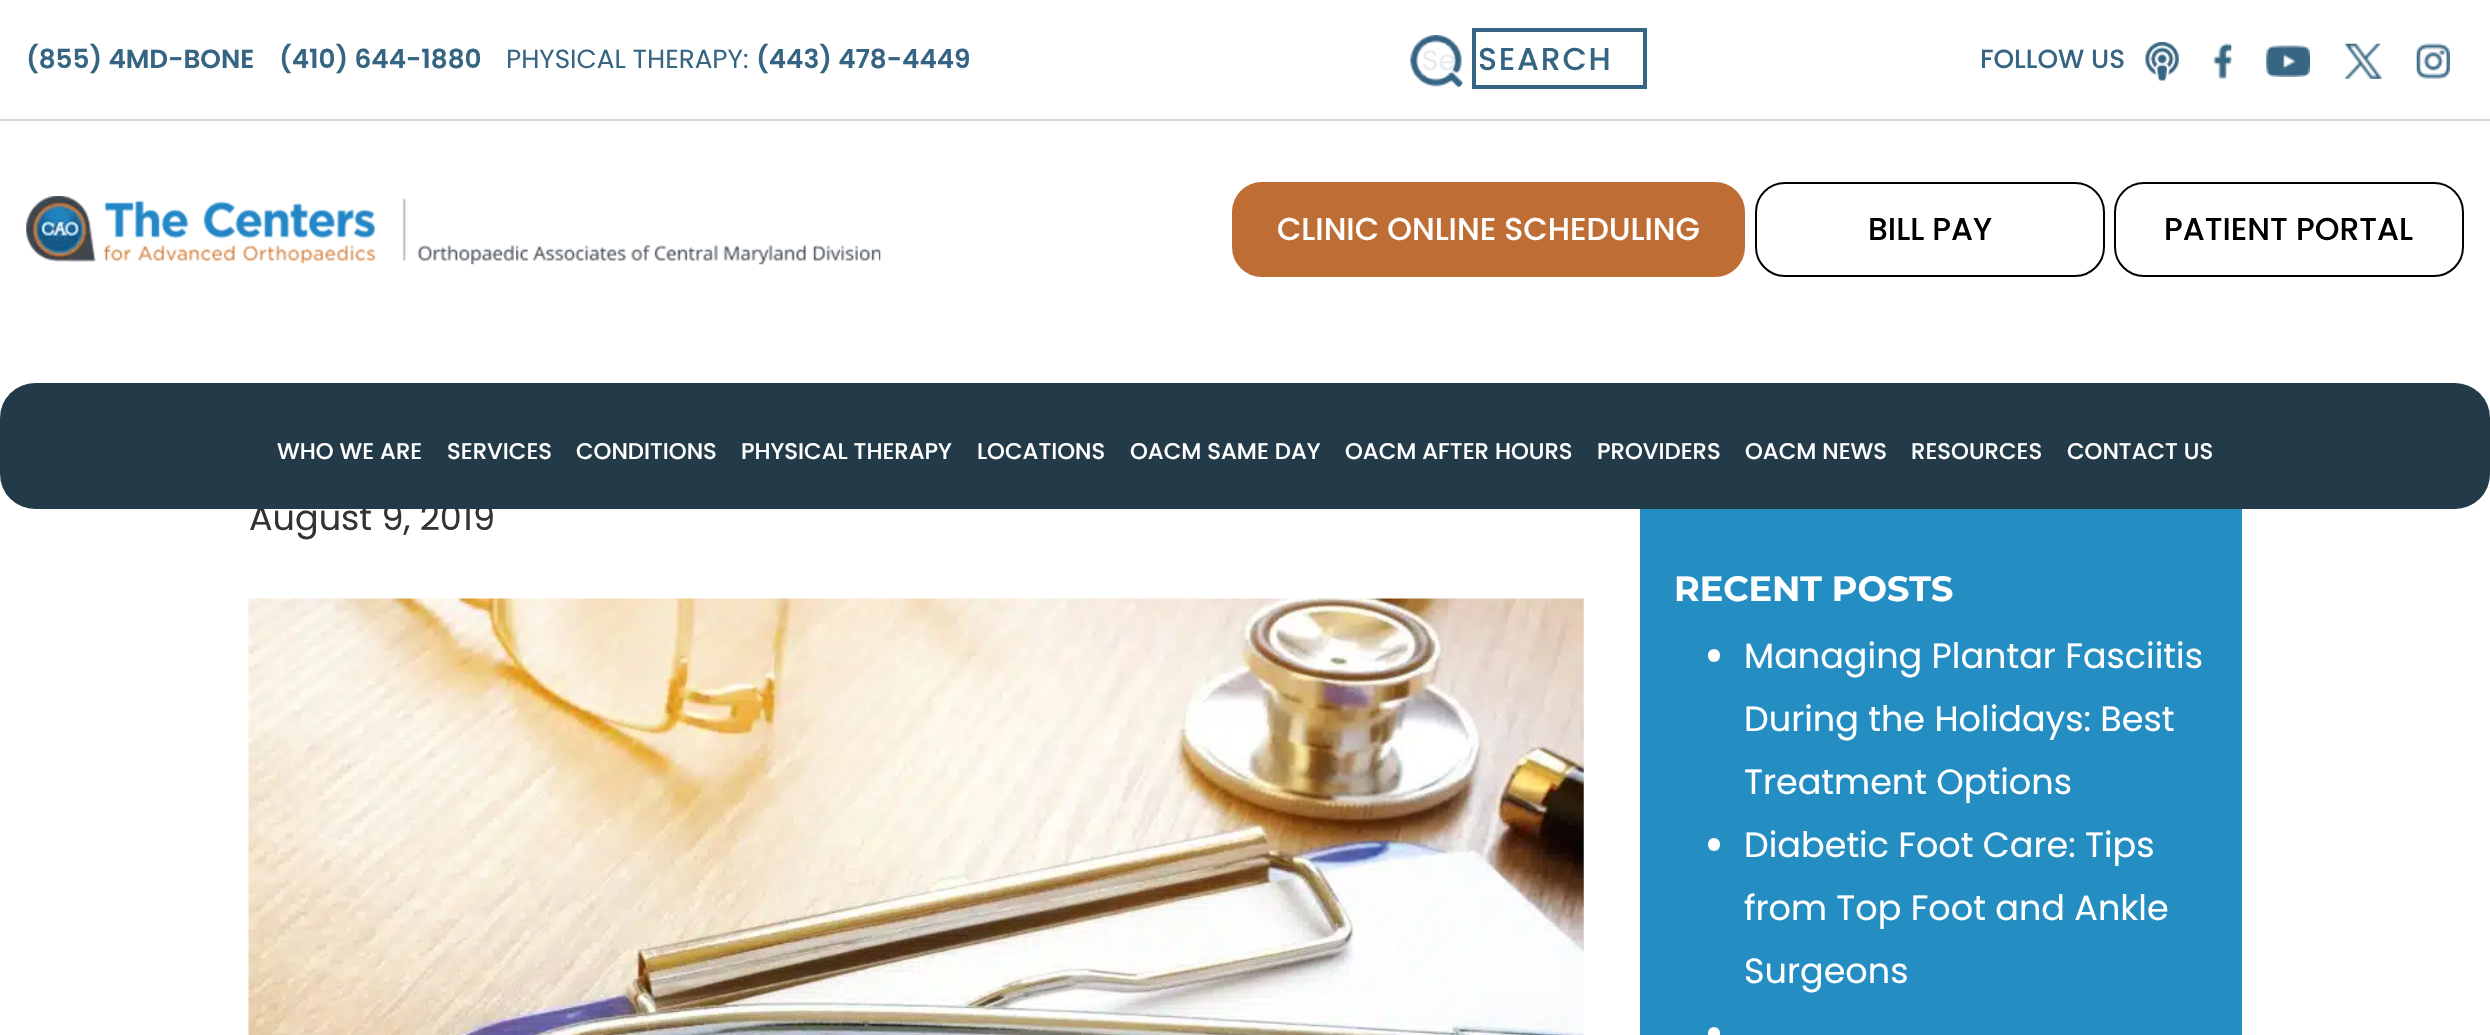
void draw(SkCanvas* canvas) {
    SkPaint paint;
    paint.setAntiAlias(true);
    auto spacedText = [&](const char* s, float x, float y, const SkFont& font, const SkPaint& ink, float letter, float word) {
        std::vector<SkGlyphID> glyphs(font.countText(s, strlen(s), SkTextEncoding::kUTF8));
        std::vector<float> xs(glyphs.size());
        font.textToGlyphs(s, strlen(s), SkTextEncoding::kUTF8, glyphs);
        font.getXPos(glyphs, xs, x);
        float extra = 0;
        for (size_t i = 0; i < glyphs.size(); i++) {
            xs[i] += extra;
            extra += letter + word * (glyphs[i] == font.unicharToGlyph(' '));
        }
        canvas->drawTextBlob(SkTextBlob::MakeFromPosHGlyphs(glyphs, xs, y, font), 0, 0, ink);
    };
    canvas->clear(0xFFFFFFFF);
    paint.setColor(0xFFCDD8E0);
    canvas->drawRect(SkRect::MakeXYWH(0, 119, 2490, 2), paint);
    SkFont font1(fontMgr->matchFamilyStyle("Poppins", SkFontStyle(600, SkFontStyle::kNormal_Width, SkFontStyle::kUpright_Slant)), 26.25f);
    font1.setSubpixel(true);
    paint.setColor(0xFF366583);
    canvas->drawString("(855) 4MD-BONE", 26, 68, font1, paint);
    canvas->drawString("(410) 644-1880", 279, 68, font1, paint);
    SkFont font2(fontMgr->matchFamilyStyle("Poppins", SkFontStyle::Normal()), 26.25f);
    font2.setSubpixel(true);
    canvas->drawString("PHYSICAL THERAPY:", 506, 68, font2, paint);
    canvas->drawString("(443) 478-4449", 756, 68, font1, paint);
    canvas->drawImageRect(SkImages::DeferredFromEncodedData(SkData::MakeFromFileName("img1.png")), SkRect::MakeXYWH(1410, 35, 53, 53), SkSamplingOptions());
    SkFont font3(fontMgr->matchFamilyStyle("Poppins", SkFontStyle::Normal()), 28);
    font3.setSubpixel(true);
    paint.setColor(0xFFE6ECF0);
    canvas->drawString("Se", 1422, 70, font3, paint);
    paint.setStyle(SkPaint::kStroke_Style);
    paint.setStrokeWidth(4);
    paint.setColor(0xFF366583);
    canvas->drawRect(SkRect::MakeXYWH(1474, 30, 171, 57), paint);
    SkFont font4(fontMgr->matchFamilyStyle("Poppins", SkFontStyle(500, SkFontStyle::kNormal_Width, SkFontStyle::kUpright_Slant)), 31.5f);
    font4.setSubpixel(true);
    paint.setStyle(SkPaint::kFill_Style);
    spacedText("SEARCH", 1478, 70, font4, paint, 1.75f, 0);
    SkFont font5(fontMgr->matchFamilyStyle("Poppins", SkFontStyle(500, SkFontStyle::kNormal_Width, SkFontStyle::kUpright_Slant)), 26.25f);
    font5.setSubpixel(true);
    canvas->drawString("FOLLOW US", 1980, 68, font5, paint);
    canvas->drawImageRect(SkImages::DeferredFromEncodedData(SkData::MakeFromFileName("img2.png")), SkRect::MakeXYWH(2145, 42, 34, 39), SkSamplingOptions());
    canvas->drawImageRect(SkImages::DeferredFromEncodedData(SkData::MakeFromFileName("img3.png")), SkRect::MakeXYWH(2213, 43, 19, 36), SkSamplingOptions());
    canvas->drawImageRect(SkImages::DeferredFromEncodedData(SkData::MakeFromFileName("img4.png")), SkRect::MakeXYWH(2266, 45, 44, 32), SkSamplingOptions());
    canvas->drawImageRect(SkImages::DeferredFromEncodedData(SkData::MakeFromFileName("img5.png")), SkRect::MakeXYWH(2345, 43, 37, 36), SkSamplingOptions());
    canvas->drawImageRect(SkImages::DeferredFromEncodedData(SkData::MakeFromFileName("img6.png")), SkRect::MakeXYWH(2416, 43, 34, 36), SkSamplingOptions());
    canvas->drawImageRect(SkImages::DeferredFromEncodedData(SkData::MakeFromFileName("img7.png")), SkRect::MakeXYWH(26, 196, 855, 69), SkSamplingOptions());
    paint.setColor(0xFFBE6D34);
    canvas->drawRoundRect(SkRect::MakeXYWH(1233, 183, 511, 93), 29, 29, paint);
    paint.setStyle(SkPaint::kStroke_Style);
    paint.setStrokeWidth(2);
    canvas->drawRoundRect(SkRect::MakeXYWH(1233, 183, 511, 93), 29, 29, paint);
    paint.setStyle(SkPaint::kFill_Style);
    paint.setColor(0xFFFFFFFF);
    canvas->drawString("CLINIC ONLINE SCHEDULING", 1277, 240, font4, paint);
    paint.setStyle(SkPaint::kStroke_Style);
    paint.setColor(0xFF000000);
    canvas->drawRoundRect(SkRect::MakeXYWH(1756, 183, 348, 93), 29, 29, paint);
    paint.setStyle(SkPaint::kFill_Style);
    canvas->drawString("BILL PAY", 1868, 240, font4, paint);
    paint.setStyle(SkPaint::kStroke_Style);
    canvas->drawRoundRect(SkRect::MakeXYWH(2115, 183, 348, 93), 29, 29, paint);
    paint.setStyle(SkPaint::kFill_Style);
    canvas->drawString("PATIENT PORTAL", 2164, 240, font4, paint);
    SkFont font6(fontMgr->matchFamilyStyle("Poppins", SkFontStyle::Normal()), 35);
    font6.setSubpixel(true);
    paint.setColor(0xFF333333);
    canvas->drawString("August 9, 2019", 249, 530, font6, paint);
    paint.setColor(0xFF233A48);
    canvas->drawRoundRect(SkRect::MakeXYWH(0, 383, 2490, 126), 35, 35, paint);
    SkFont font7(fontMgr->matchFamilyStyle("Poppins", SkFontStyle(500, SkFontStyle::kNormal_Width, SkFontStyle::kUpright_Slant)), 22.75f);
    font7.setSubpixel(true);
    paint.setColor(0xFFFFFFFF);
    canvas->drawString("WHO WE ARE", 277, 459, font7, paint);
    canvas->drawString("SERVICES", 447, 459, font7, paint);
    canvas->drawString("CONDITIONS", 576, 459, font7, paint);
    canvas->drawString("PHYSICAL THERAPY", 741, 459, font7, paint);
    canvas->drawString("LOCATIONS", 977, 459, font7, paint);
    canvas->drawString("OACM SAME DAY", 1130, 459, font7, paint);
    canvas->drawString("OACM AFTER HOURS", 1345, 459, font7, paint);
    canvas->drawString("PROVIDERS", 1597, 459, font7, paint);
    canvas->drawString("OACM NEWS", 1745, 459, font7, paint);
    canvas->drawString("RESOURCES", 1911, 459, font7, paint);
    canvas->drawString("CONTACT US", 2067, 459, font7, paint);
    canvas->drawImageRect(SkImages::DeferredFromEncodedData(SkData::MakeFromFileName("img8.png")), SkRect::MakeXYWH(248, 598, 1336, 437), SkSamplingOptions());
    paint.setColor(0xFF248EC2);
    canvas->drawRect(SkRect::MakeXYWH(1640, 509, 602, 526), paint);
    SkFont font8(fontMgr->matchFamilyStyle("Montserrat", SkFontStyle::Bold()), 35);
    font8.setSubpixel(true);
    paint.setColor(0xFFFFFFFF);
    canvas->drawString("RECENT POSTS", 1674, 601, font8, paint);
    canvas->drawRoundRect(SkRect::MakeXYWH(1708, 649, 12, 13), 6, 6, paint);
    canvas->drawString("Managing Plantar Fasciitis", 1744, 668, font6, paint);
    canvas->drawString("During the Holidays: Best", 1744, 731, font6, paint);
    canvas->drawString("Treatment Options", 1744, 794, font6, paint);
    canvas->drawRoundRect(SkRect::MakeXYWH(1708, 838, 12, 13), 6, 6, paint);
    canvas->drawString("Diabetic Foot Care: Tips", 1744, 857, font6, paint);
    canvas->drawString("from Top Foot and Ankle", 1744, 920, font6, paint);
    canvas->drawString("Surgeons", 1744, 983, font6, paint);
    canvas->drawRoundRect(SkRect::MakeXYWH(1708, 1027, 12, 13), 6, 6, paint);
}
